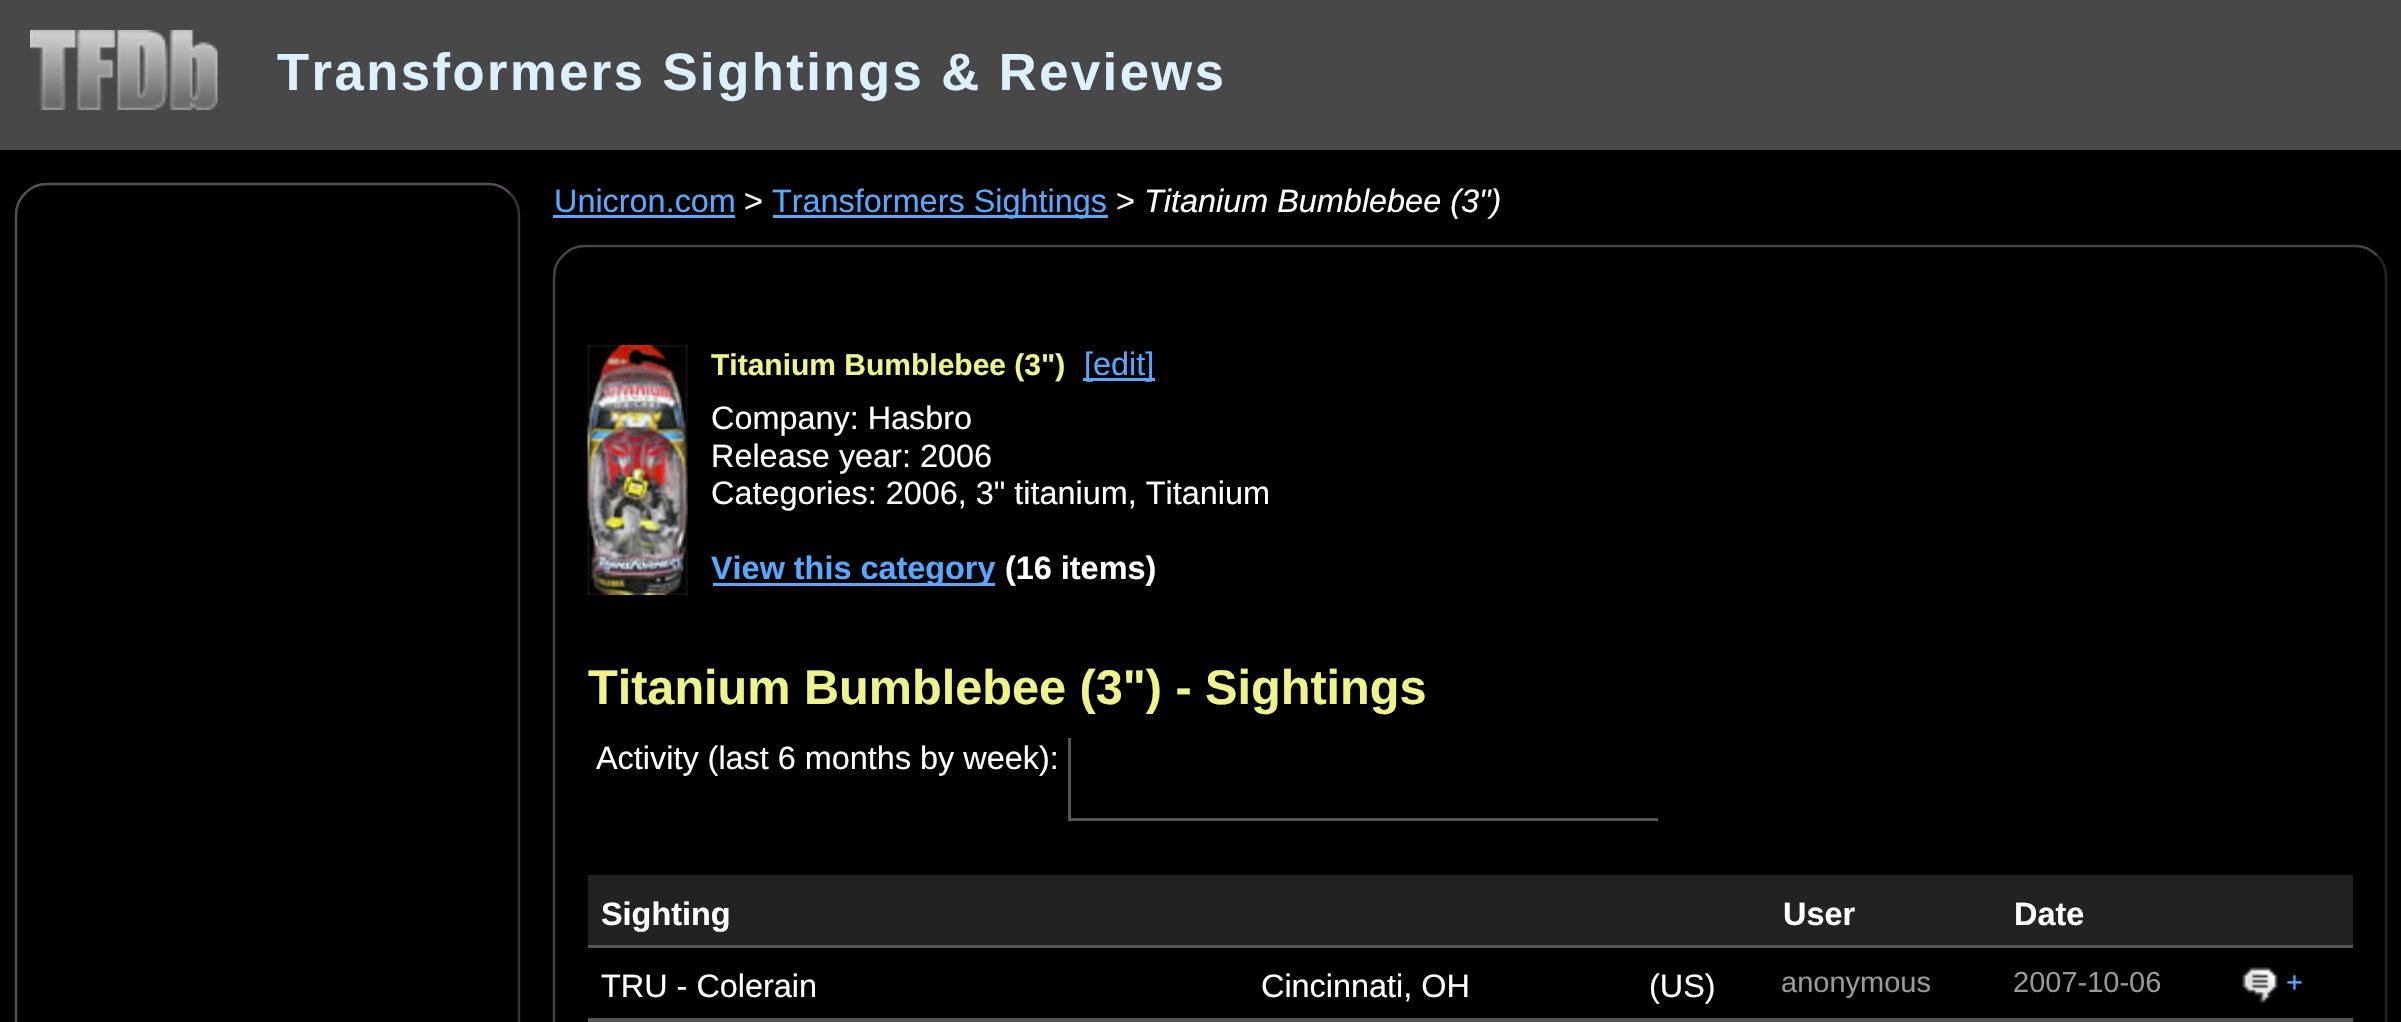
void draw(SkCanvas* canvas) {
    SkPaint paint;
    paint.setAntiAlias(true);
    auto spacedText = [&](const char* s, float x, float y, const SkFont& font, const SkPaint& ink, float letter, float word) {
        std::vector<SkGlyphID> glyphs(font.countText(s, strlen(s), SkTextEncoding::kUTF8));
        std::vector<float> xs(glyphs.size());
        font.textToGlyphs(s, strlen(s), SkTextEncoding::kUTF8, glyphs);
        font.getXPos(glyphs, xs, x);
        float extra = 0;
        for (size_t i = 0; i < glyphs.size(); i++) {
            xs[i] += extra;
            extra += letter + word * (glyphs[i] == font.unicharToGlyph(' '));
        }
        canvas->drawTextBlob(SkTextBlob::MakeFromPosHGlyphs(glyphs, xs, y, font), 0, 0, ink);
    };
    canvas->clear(0xFF000000);
    paint.setColor(0xFF484848);
    canvas->drawRect(SkRect::MakeXYWH(0, 0, 2401, 150), paint);
    canvas->drawImageRect(SkImages::DeferredFromEncodedData(SkData::MakeFromFileName("img1.png")), SkRect::MakeXYWH(30, 30, 188, 80), SkSamplingOptions());
    SkFont font1(fontMgr->matchFamilyStyle("Liberation Sans", SkFontStyle::Bold()), 52.5f);
    font1.setSubpixel(true);
    paint.setColor(0xFFDBF1FF);
    spacedText("Transformers Sightings & Reviews", 277, 90, font1, paint, 2.5f, 0);
    paint.setStyle(SkPaint::kStroke_Style);
    paint.setStrokeWidth(2.5f);
    paint.setColor(0xFF333333);
    canvas->drawPath(SkPathBuilder().moveTo(509.5f, 193).cubicTo(515.5f, 198.5f, 519, 206.5f, 519, 215).lineTo(519, 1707.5f).cubicTo(519, 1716, 515.5f, 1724, 509.5f, 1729.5f).cubicTo(504, 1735.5f, 496, 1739, 487.5f, 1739).lineTo(47.5f, 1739).cubicTo(39, 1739, 31, 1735.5f, 25.5f, 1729.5f).detach(), paint);
    paint.setColor(0xFF554D55);
    canvas->drawPath(SkPathBuilder().moveTo(25.5f, 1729.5f).cubicTo(19.5f, 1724, 16.5f, 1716, 16, 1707.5f).lineTo(16, 215).cubicTo(16, 206.5f, 19.5f, 198.5f, 25.5f, 193).cubicTo(31, 187, 39, 184, 47.5f, 184).lineTo(487.5f, 184).cubicTo(496, 184, 504, 187, 509.5f, 193).detach(), paint);
    SkFont font2(fontMgr->matchFamilyStyle("Liberation Sans", SkFontStyle::Normal()), 32.4f);
    font2.setSubpixel(true);
    paint.setStyle(SkPaint::kFill_Style);
    paint.setColor(0xFF55AAFF);
    canvas->drawString("Unicron.com", 554, 212, font2, paint);
    canvas->drawRect(SkRect::MakeXYWH(553, 215, 182, 3), paint);
    paint.setColor(0xFFFFFFFF);
    canvas->drawString(">", 744, 212, font2, paint);
    paint.setColor(0xFF55AAFF);
    canvas->drawRect(SkRect::MakeXYWH(773, 215, 335, 3), paint);
    canvas->drawString("Transformers Sightings", 772, 212, font2, paint);
    paint.setColor(0xFFFFFFFF);
    canvas->drawString(">", 1116, 212, font2, paint);
    SkFont font3(fontMgr->matchFamilyStyle("Liberation Sans", SkFontStyle::Italic()), 32.4f);
    font3.setSubpixel(true);
    canvas->drawString("Titanium Bumblebee (3\")", 1144, 212, font3, paint);
    paint.setStyle(SkPaint::kStroke_Style);
    paint.setColor(0xFF222222);
    canvas->drawPath(SkPathBuilder().moveTo(2377, 255.5f).cubicTo(2383, 261, 2386, 269, 2386, 277.5f).lineTo(2386, 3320).cubicTo(2386, 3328.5f, 2383, 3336.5f, 2377, 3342).cubicTo(2371.5f, 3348, 2363.5f, 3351, 2355, 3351).lineTo(585, 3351).cubicTo(576.5f, 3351, 568.5f, 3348, 563, 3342).detach(), paint);
    paint.setColor(0xFF444444);
    canvas->drawPath(SkPathBuilder().moveTo(563, 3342).cubicTo(557, 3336.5f, 554, 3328.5f, 554, 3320).lineTo(554, 277.5f).cubicTo(554, 269, 557, 261, 563, 255.5f).cubicTo(568.5f, 249.5f, 576.5f, 246, 585, 246).lineTo(2355, 246).cubicTo(2363.5f, 246, 2371.5f, 249.5f, 2377, 255.5f).detach(), paint);
    canvas->drawImageRect(SkImages::DeferredFromEncodedData(SkData::MakeFromFileName("img2.png")), SkRect::MakeXYWH(587, 345, 101, 250), SkSamplingOptions());
    SkFont font4(fontMgr->matchFamilyStyle("Liberation Sans", SkFontStyle::Bold()), 30);
    font4.setSubpixel(true);
    paint.setStyle(SkPaint::kFill_Style);
    paint.setColor(0xFFEEF489);
    canvas->drawString("Titanium Bumblebee (3\")", 711, 375, font4, paint);
    paint.setColor(0xFF55AAFF);
    canvas->drawRect(SkRect::MakeXYWH(1083, 378, 72, 3), paint);
    canvas->drawString("[edit]", 1084, 375, font2, paint);
    paint.setColor(0xFFFFFFFF);
    canvas->drawString("Company: Hasbro", 711, 429, font2, paint);
    canvas->drawString("Release year: 2006", 711, 467, font2, paint);
    canvas->drawString("Categories: 2006, 3\" titanium, Titanium", 711, 504, font2, paint);
    paint.setColor(0xFF55AAFF);
    canvas->drawRect(SkRect::MakeXYWH(713, 583, 282, 3), paint);
    SkFont font5(fontMgr->matchFamilyStyle("Liberation Sans", SkFontStyle::Bold()), 32.4f);
    font5.setSubpixel(true);
    canvas->drawString("View this category", 711, 579, font5, paint);
    paint.setColor(0xFFFFFFFF);
    canvas->drawString("(16 items)", 1005, 579, font5, paint);
    SkFont font6(fontMgr->matchFamilyStyle("Liberation Sans", SkFontStyle::Bold()), 48.6f);
    font6.setSubpixel(true);
    paint.setColor(0xFFEEF489);
    canvas->drawString("Titanium Bumblebee (3\") - Sightings", 588, 704, font6, paint);
    paint.setColor(0xFFFFFFFF);
    canvas->drawString("Activity (last 6 months by week):", 596, 769, font2, paint);
    paint.setColor(0xFF555555);
    canvas->drawRect(SkRect::MakeXYWH(1068, 818, 590, 3), paint);
    canvas->drawRect(SkRect::MakeXYWH(1068, 738, 3, 82), paint);
    paint.setColor(0xFF222222);
    canvas->drawRect(SkRect::MakeXYWH(588, 875, 1765, 70), paint);
    paint.setColor(0xFFFFFFFF);
    canvas->drawString("Sighting", 601, 925, font5, paint);
    canvas->drawString("User", 1783, 925, font5, paint);
    canvas->drawString("Date", 2014, 925, font5, paint);
    canvas->drawString("TRU - Colerain", 601, 997, font2, paint);
    canvas->drawString("Cincinnati, OH", 1261, 997, font2, paint);
    canvas->drawString("(US)", 1649, 997, font2, paint);
    SkFont font7(fontMgr->matchFamilyStyle("Liberation Sans", SkFontStyle::Normal()), 29);
    font7.setSubpixel(true);
    paint.setColor(0xFF999999);
    canvas->drawString("anonymous", 1781, 992, font7, paint);
    canvas->drawString("2007-10-06", 2013, 992, font7, paint);
    paint.setColor(0xFF555555);
    canvas->drawRect(SkRect::MakeXYWH(588, 945, 1765, 3), paint);
    canvas->drawRect(SkRect::MakeXYWH(588, 1018, 1765, 3), paint);
    canvas->drawImageRect(SkImages::DeferredFromEncodedData(SkData::MakeFromFileName("img3.png")), SkRect::MakeXYWH(2242, 967, 36, 36), SkSamplingOptions());
    paint.setColor(0xFF55AAFF);
    canvas->drawString("+", 2286, 992, font7, paint);
    paint.setColor(0xFF555555);
    canvas->drawRect(SkRect::MakeXYWH(588, 1021, 1765, 1), paint);
}
